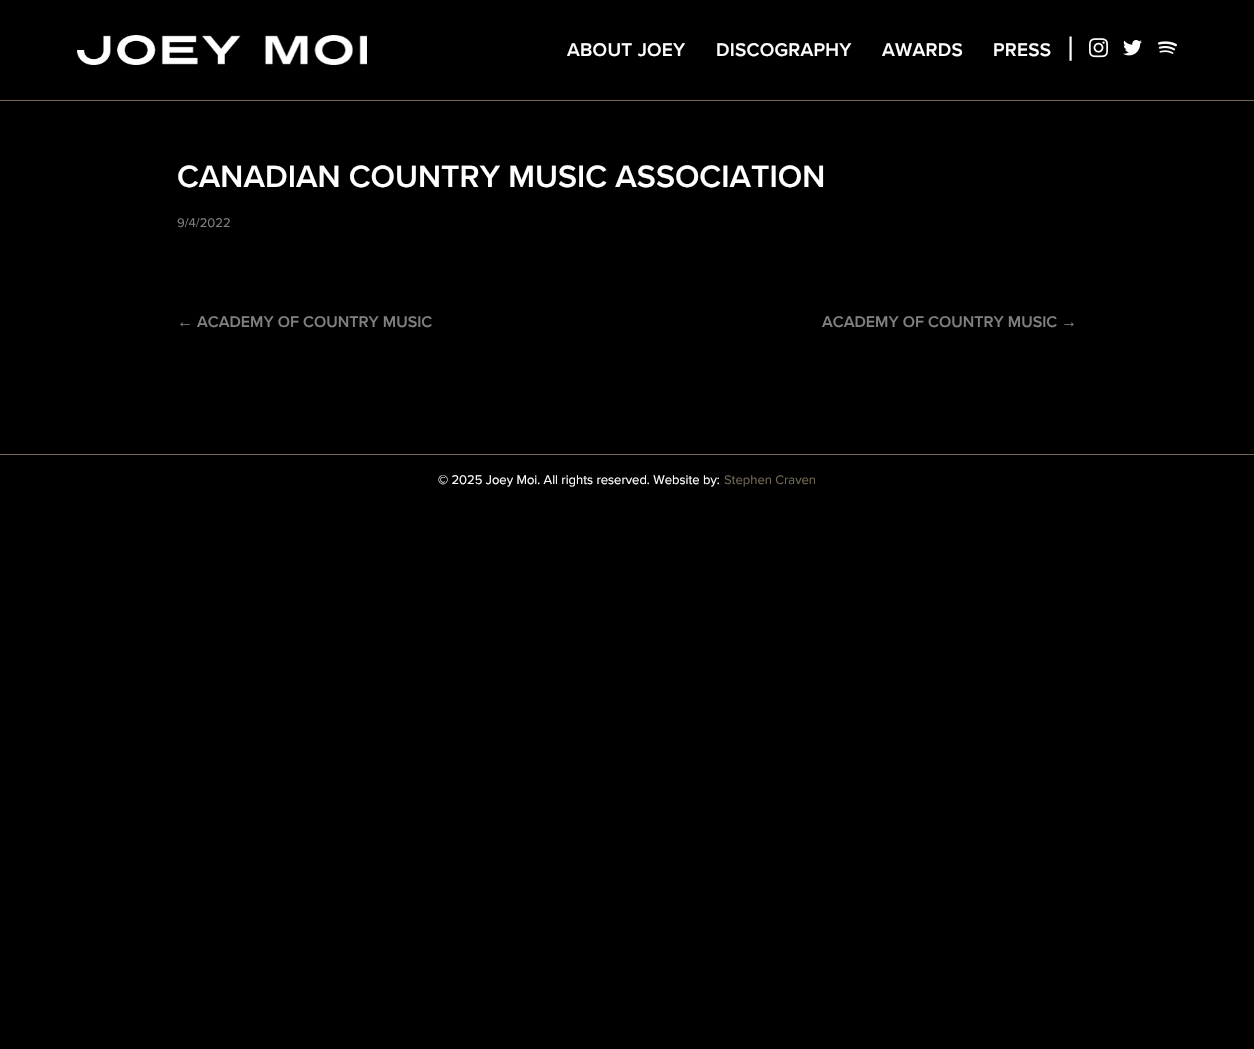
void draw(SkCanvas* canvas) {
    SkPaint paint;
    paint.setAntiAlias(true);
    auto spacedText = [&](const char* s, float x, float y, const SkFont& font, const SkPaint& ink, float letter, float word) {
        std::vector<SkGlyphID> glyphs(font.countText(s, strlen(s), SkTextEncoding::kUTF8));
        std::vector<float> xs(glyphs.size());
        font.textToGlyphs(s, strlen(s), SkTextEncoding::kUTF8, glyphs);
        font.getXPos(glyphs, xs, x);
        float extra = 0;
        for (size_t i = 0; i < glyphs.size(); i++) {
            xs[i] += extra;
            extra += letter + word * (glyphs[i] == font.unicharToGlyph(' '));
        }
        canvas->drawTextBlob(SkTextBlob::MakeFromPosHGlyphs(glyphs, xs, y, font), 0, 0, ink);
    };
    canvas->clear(0xFF000000);
    paint.setColor(0xFF746B56);
    canvas->drawRect(SkRect::MakeXYWH(0, 100, 1254, 1), paint);
    canvas->drawImageRect(SkImages::DeferredFromEncodedData(SkData::MakeFromFileName("img1.png")), SkRect::MakeXYWH(77, 35, 290, 30), SkSamplingOptions());
    SkFont font1(fontMgr->matchFamilyStyle("Proxima Nova", SkFontStyle(600, SkFontStyle::kNormal_Width, SkFontStyle::kUpright_Slant)), 19);
    font1.setSubpixel(true);
    paint.setColor(0xFFFFFFFF);
    spacedText("ABOUT JOEY", 567, 56, font1, paint, 0.25f, 0);
    spacedText("DISCOGRAPHY", 716, 56, font1, paint, 0.25f, 0);
    spacedText("AWARDS", 882, 56, font1, paint, 0.25f, 0);
    spacedText("PRESS", 993, 56, font1, paint, 0.25f, 0);
    SkFont font2(fontMgr->matchFamilyStyle("Proxima Nova", SkFontStyle::Normal()), 34);
    font2.setSubpixel(true);
    spacedText("|", 1067, 60, font2, paint, 0.25f, 0);
    canvas->drawImageRect(SkImages::DeferredFromEncodedData(SkData::MakeFromFileName("img2.png")), SkRect::MakeXYWH(1089, 38, 19, 20), SkSamplingOptions());
    canvas->drawImageRect(SkImages::DeferredFromEncodedData(SkData::MakeFromFileName("img3.png")), SkRect::MakeXYWH(1123, 40, 19, 16), SkSamplingOptions());
    canvas->drawImageRect(SkImages::DeferredFromEncodedData(SkData::MakeFromFileName("img4.png")), SkRect::MakeXYWH(1158, 41, 19, 13), SkSamplingOptions());
    SkFont font3(fontMgr->matchFamilyStyle("Proxima Nova", SkFontStyle(600, SkFontStyle::kNormal_Width, SkFontStyle::kUpright_Slant)), 32);
    font3.setSubpixel(true);
    canvas->drawString("CANADIAN COUNTRY MUSIC ASSOCIATION", 177, 187, font3, paint);
    SkFont font4(fontMgr->matchFamilyStyle("Proxima Nova", SkFontStyle::Normal()), 13);
    font4.setSubpixel(true);
    paint.setColor(0xFF808080);
    canvas->drawString("9/4/2022", 177, 227, font4, paint);
    SkFont font5(fontMgr->matchFamilyStyle("Liberation Sans", SkFontStyle::Bold()), 16);
    font5.setSubpixel(true);
    canvas->drawString("←", 177, 327, font5, paint);
    SkFont font6(fontMgr->matchFamilyStyle("Proxima Nova", SkFontStyle(600, SkFontStyle::kNormal_Width, SkFontStyle::kUpright_Slant)), 16);
    font6.setSubpixel(true);
    canvas->drawString("ACADEMY OF COUNTRY MUSIC", 197, 327, font6, paint);
    canvas->drawString("ACADEMY OF COUNTRY MUSIC", 822, 327, font6, paint);
    canvas->drawString("→", 1061, 327, font5, paint);
    paint.setColor(0xFF746B56);
    canvas->drawRect(SkRect::MakeXYWH(0, 454, 1254, 1), paint);
    paint.setColor(0xFFFFFFFF);
    canvas->drawString("© 2025 Joey Moi. All rights reserved. Website by:", 438, 484, font4, paint);
    paint.setColor(0xFF746B56);
    canvas->drawString("Stephen Craven", 724, 484, font4, paint);
}
